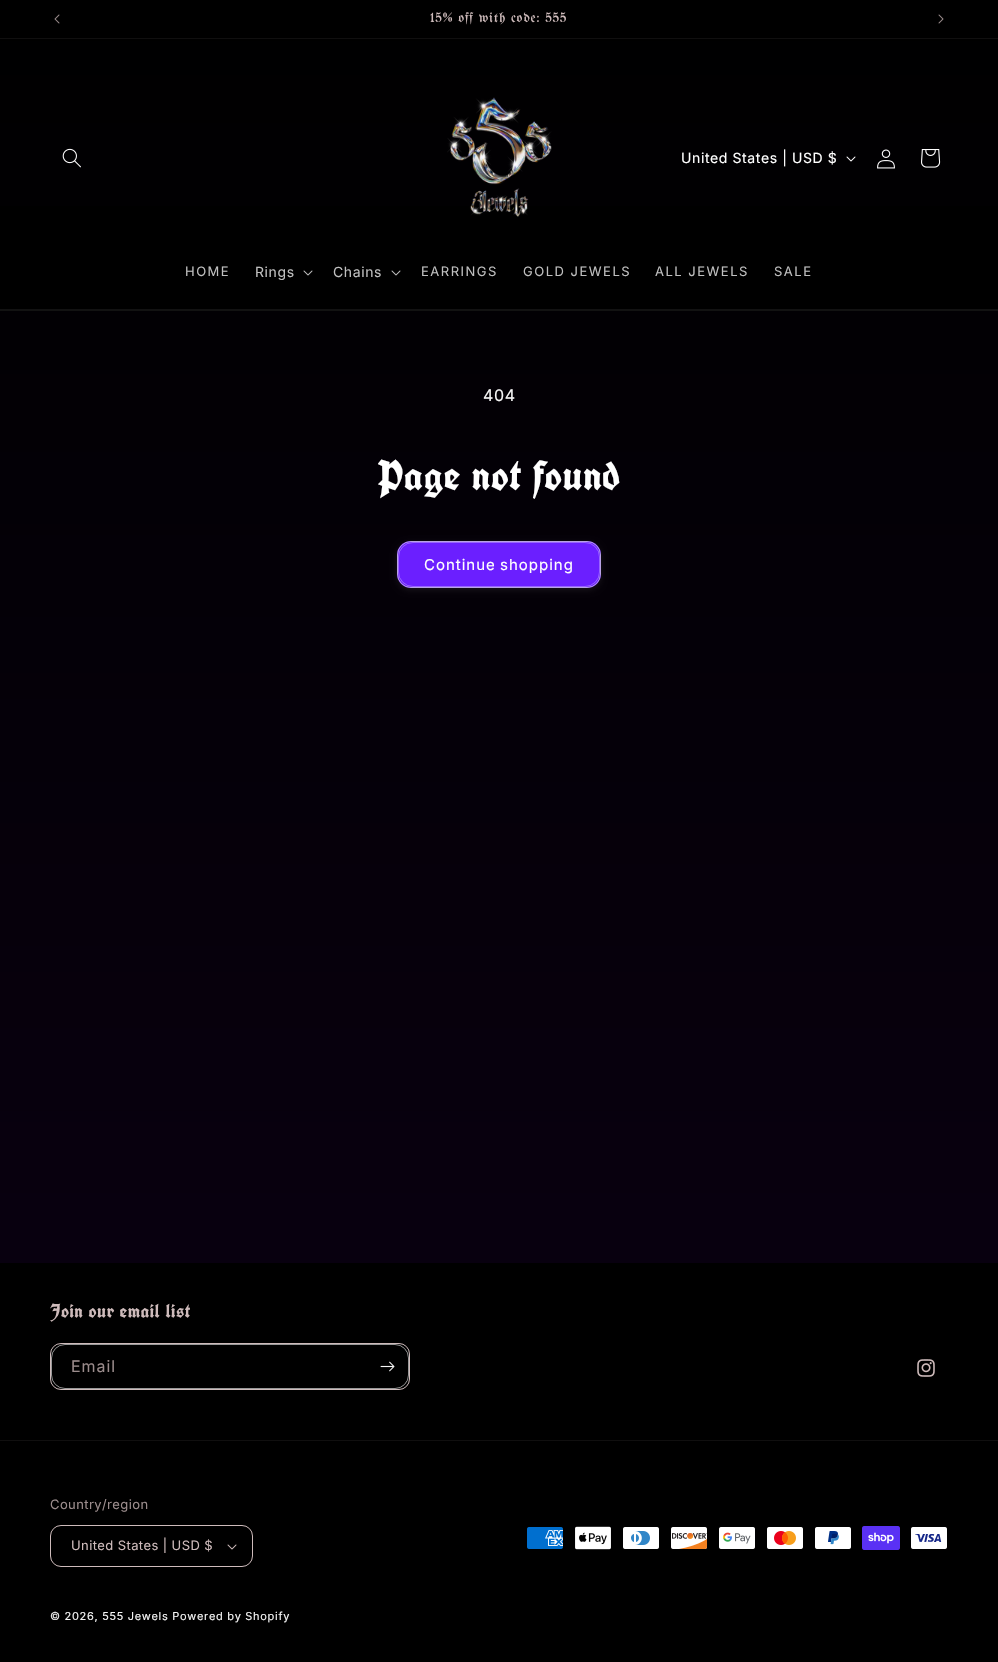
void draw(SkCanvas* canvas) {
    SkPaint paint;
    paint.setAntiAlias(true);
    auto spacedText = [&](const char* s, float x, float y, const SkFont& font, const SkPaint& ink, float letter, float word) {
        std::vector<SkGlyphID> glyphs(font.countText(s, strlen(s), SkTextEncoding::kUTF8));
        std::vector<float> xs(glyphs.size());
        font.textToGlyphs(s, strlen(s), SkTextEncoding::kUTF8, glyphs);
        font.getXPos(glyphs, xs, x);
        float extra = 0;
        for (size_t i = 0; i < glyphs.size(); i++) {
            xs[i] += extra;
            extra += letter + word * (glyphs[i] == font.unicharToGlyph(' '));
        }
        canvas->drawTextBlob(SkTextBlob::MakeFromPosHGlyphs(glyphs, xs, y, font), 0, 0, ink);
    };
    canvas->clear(0xFFFFFFFF);
    {
        const SkColor colors[] = {0xFF000000, 0xFF0B0014};
        const float stops[] = {0, 0.99f};
        const SkPoint ends[] = {{499, 0}, {499, 1662}};
        paint.setShader(SkGradientShader::MakeLinear(ends, colors, stops, 2, SkTileMode::kClamp));
        paint.setAlpha(255);
    }
    canvas->drawRect(SkRect::MakeXYWH(0, 0, 998, 1263), paint);
    paint.setShader(nullptr);
    paint.setColor(0xFF100F0F);
    canvas->drawRect(SkRect::MakeXYWH(0, 38, 998, 1), paint);
    canvas->drawImageRect(SkImages::DeferredFromEncodedData(SkData::MakeFromFileName("img1.png")), SkRect::MakeXYWH(54, 14, 6, 10), SkSamplingOptions());
    SkFont font1(fontMgr->matchFamilyStyle("UnifrakturMaguntia", SkFontStyle::Normal()), 13.6f);
    font1.setSubpixel(true);
    paint.setColor(0xFFCEBBBB);
    spacedText("15% off with code: 555", 430, 22, font1, paint, 1, 0);
    canvas->drawImageRect(SkImages::DeferredFromEncodedData(SkData::MakeFromFileName("img2.png")), SkRect::MakeXYWH(938, 14, 6, 10), SkSamplingOptions());
    paint.setColor(0xFF000000);
    canvas->drawRect(SkRect::MakeXYWH(0, 206, 998, 103), paint);
    paint.setColor(0xFF121212);
    canvas->drawRect(SkRect::MakeXYWH(0, 309, 998, 2), paint);
    canvas->drawImageRect(SkImages::DeferredFromEncodedData(SkData::MakeFromFileName("img3.png")), SkRect::MakeXYWH(62, 148, 19, 20), SkSamplingOptions());
    canvas->drawImageRect(SkImages::DeferredFromEncodedData(SkData::MakeFromFileName("img4.png")), SkRect::MakeXYWH(447, 97, 105, 120), SkSamplingOptions());
    SkFont font2(fontMgr->matchFamilyStyle("Inter", SkFontStyle::Normal()), 14);
    font2.setSubpixel(true);
    paint.setColor(0xFFFFFFFF);
    spacedText("United States | USD $", 681, 163, font2, paint, 0.6f, 0);
    canvas->drawImageRect(SkImages::DeferredFromEncodedData(SkData::MakeFromFileName("img5.png")), SkRect::MakeXYWH(846, 156, 10, 6), SkSamplingOptions());
    canvas->drawImageRect(SkImages::DeferredFromEncodedData(SkData::MakeFromFileName("img6.png")), SkRect::MakeXYWH(877, 149, 18, 20), SkSamplingOptions());
    canvas->drawImageRect(SkImages::DeferredFromEncodedData(SkData::MakeFromFileName("img7.png")), SkRect::MakeXYWH(921, 149, 20, 19), SkSamplingOptions());
    SkFont font3(fontMgr->matchFamilyStyle("Inter", SkFontStyle::Normal()), 13);
    font3.setSubpixel(true);
    paint.setColor(0xFFBFBFBF);
    spacedText("HOME", 185, 276, font3, paint, 1.5f, 0);
    spacedText("Rings", 255, 277, font2, paint, 0.6f, 0);
    canvas->drawImageRect(SkImages::DeferredFromEncodedData(SkData::MakeFromFileName("img8.png")), SkRect::MakeXYWH(303, 270, 10, 6), SkSamplingOptions());
    spacedText("Chains", 333, 277, font2, paint, 0.6f, 0);
    canvas->drawImageRect(SkImages::DeferredFromEncodedData(SkData::MakeFromFileName("img8.png")), SkRect::MakeXYWH(391, 270, 10, 6), SkSamplingOptions());
    spacedText("EARRINGS", 421, 276, font3, paint, 1.5f, 0);
    spacedText("GOLD JEWELS", 523, 276, font3, paint, 1.5f, 0);
    spacedText("ALL JEWELS", 655, 276, font3, paint, 1.5f, 0);
    spacedText("SALE", 774, 276, font3, paint, 1.5f, 0);
    SkFont font4(fontMgr->matchFamilyStyle("Inter", SkFontStyle::Normal()), 16);
    font4.setSubpixel(true);
    paint.setColor(0xFFF5F5F5);
    spacedText("404", 483, 401, font4, paint, 0.6f, 0);
    SkFont font5(fontMgr->matchFamilyStyle("UnifrakturCook", SkFontStyle::Bold()), 42);
    font5.setSubpixel(true);
    paint.setColor(0xFFFFFFFF);
    spacedText("Page not found", 377, 491, font5, paint, 0.5f, 0);
    paint.setColor(0x14FFFFFF);
    paint.setMaskFilter(SkMaskFilter::MakeBlur(kNormal_SkBlurStyle, 3));
    canvas->drawRoundRect(SkRect::MakeXYWH(397, 543, 204, 47), 14, 14, paint);
    paint.setMaskFilter(nullptr);
    paint.setColor(0xFF6B1FFF);
    canvas->drawRoundRect(SkRect::MakeXYWH(397, 541, 204, 47), 14, 14, paint);
    paint.setStyle(SkPaint::kStroke_Style);
    paint.setStrokeWidth(1);
    paint.setColor(0xB3D9D9D9);
    canvas->drawRoundRect(SkRect::MakeXYWH(397.5f, 541.5f, 203, 46), 13.5f, 13.5f, paint);
    paint.setColor(0xFF6B1FFF);
    canvas->drawRoundRect(SkRect::MakeXYWH(398.5f, 542.5f, 201, 44), 14.5f, 14.5f, paint);
    paint.setColor(0x4DFFFFFF);
    canvas->drawRoundRect(SkRect::MakeXYWH(398.5f, 542.5f, 201, 44), 14.5f, 14.5f, paint);
    SkFont font6(fontMgr->matchFamilyStyle("Inter", SkFontStyle::Normal()), 15);
    font6.setSubpixel(true);
    paint.setStyle(SkPaint::kFill_Style);
    paint.setColor(0xFFFFFFFF);
    spacedText("Continue shopping", 424, 570, font6, paint, 1, -1);
    paint.setColor(0xFF000000);
    canvas->drawRect(SkRect::MakeXYWH(0, 1263, 998, 399), paint);
    SkFont font7(fontMgr->matchFamilyStyle("UnifrakturCook", SkFontStyle::Bold()), 19);
    font7.setSubpixel(true);
    paint.setColor(0xFFCEBBBB);
    spacedText("Join our email list", 50, 1318, font7, paint, 0.5f, 0);
    paint.setStyle(SkPaint::kStroke_Style);
    paint.setColor(0xFF989898);
    canvas->drawRoundRect(SkRect::MakeXYWH(51.5f, 1344.5f, 357, 44), 13.5f, 13.5f, paint);
    paint.setColor(0xFFCEBBBB);
    canvas->drawRoundRect(SkRect::MakeXYWH(50.5f, 1343.5f, 359, 46), 10.5f, 10.5f, paint);
    SkFont font8(fontMgr->matchFamilyStyle("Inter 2", SkFontStyle::Normal()), 16);
    font8.setSubpixel(true);
    paint.setStyle(SkPaint::kFill_Style);
    paint.setColor(0xFF9B8C8C);
    spacedText("Email", 71, 1372, font8, paint, 1, 0);
    canvas->drawImageRect(SkImages::DeferredFromEncodedData(SkData::MakeFromFileName("img9.png")), SkRect::MakeXYWH(380, 1361, 15, 11), SkSamplingOptions());
    canvas->drawImageRect(SkImages::DeferredFromEncodedData(SkData::MakeFromFileName("img10.png")), SkRect::MakeXYWH(917, 1359, 18, 18), SkSamplingOptions());
    paint.setColor(0xFF100F0F);
    canvas->drawRect(SkRect::MakeXYWH(0, 1440, 998, 1), paint);
    paint.setColor(0xFF9B8C8C);
    spacedText("Country/region", 50, 1509, font3, paint, 0.4f, 0);
    canvas->drawImageRect(SkImages::DeferredFromEncodedData(SkData::MakeFromFileName("img11.png")), SkRect::MakeXYWH(227, 1544, 10, 6), SkSamplingOptions());
    paint.setStyle(SkPaint::kStroke_Style);
    paint.setColor(0xFFCEBBBB);
    canvas->drawRoundRect(SkRect::MakeXYWH(50.5f, 1525.5f, 202, 41), 10.5f, 10.5f, paint);
    paint.setStyle(SkPaint::kFill_Style);
    spacedText("United States | USD $", 71, 1550, font3, paint, 0.4f, 0);
    canvas->drawImageRect(SkImages::DeferredFromEncodedData(SkData::MakeFromFileName("img12.png")), SkRect::MakeXYWH(527, 1527, 36, 22), SkSamplingOptions());
    canvas->drawImageRect(SkImages::DeferredFromEncodedData(SkData::MakeFromFileName("img13.png")), SkRect::MakeXYWH(575, 1526, 36, 24), SkSamplingOptions());
    canvas->drawImageRect(SkImages::DeferredFromEncodedData(SkData::MakeFromFileName("img14.png")), SkRect::MakeXYWH(623, 1527, 36, 22), SkSamplingOptions());
    canvas->drawImageRect(SkImages::DeferredFromEncodedData(SkData::MakeFromFileName("img15.png")), SkRect::MakeXYWH(671, 1527, 37, 22), SkSamplingOptions());
    canvas->drawImageRect(SkImages::DeferredFromEncodedData(SkData::MakeFromFileName("img16.png")), SkRect::MakeXYWH(719, 1527, 36, 22), SkSamplingOptions());
    canvas->drawImageRect(SkImages::DeferredFromEncodedData(SkData::MakeFromFileName("img17.png")), SkRect::MakeXYWH(767, 1527, 36, 22), SkSamplingOptions());
    canvas->drawImageRect(SkImages::DeferredFromEncodedData(SkData::MakeFromFileName("img18.png")), SkRect::MakeXYWH(815, 1527, 36, 22), SkSamplingOptions());
    canvas->drawImageRect(SkImages::DeferredFromEncodedData(SkData::MakeFromFileName("img19.png")), SkRect::MakeXYWH(862, 1526, 38, 24), SkSamplingOptions());
    canvas->drawImageRect(SkImages::DeferredFromEncodedData(SkData::MakeFromFileName("img20.png")), SkRect::MakeXYWH(911, 1527, 36, 22), SkSamplingOptions());
    SkFont font9(fontMgr->matchFamilyStyle("Inter", SkFontStyle::Normal()), 11);
    font9.setSubpixel(true);
    paint.setColor(0xFFF5F5F5);
    spacedText("© 2026, 555 Jewels Powered by Shopify", 50, 1620, font9, paint, 0.7f, 0);
}
